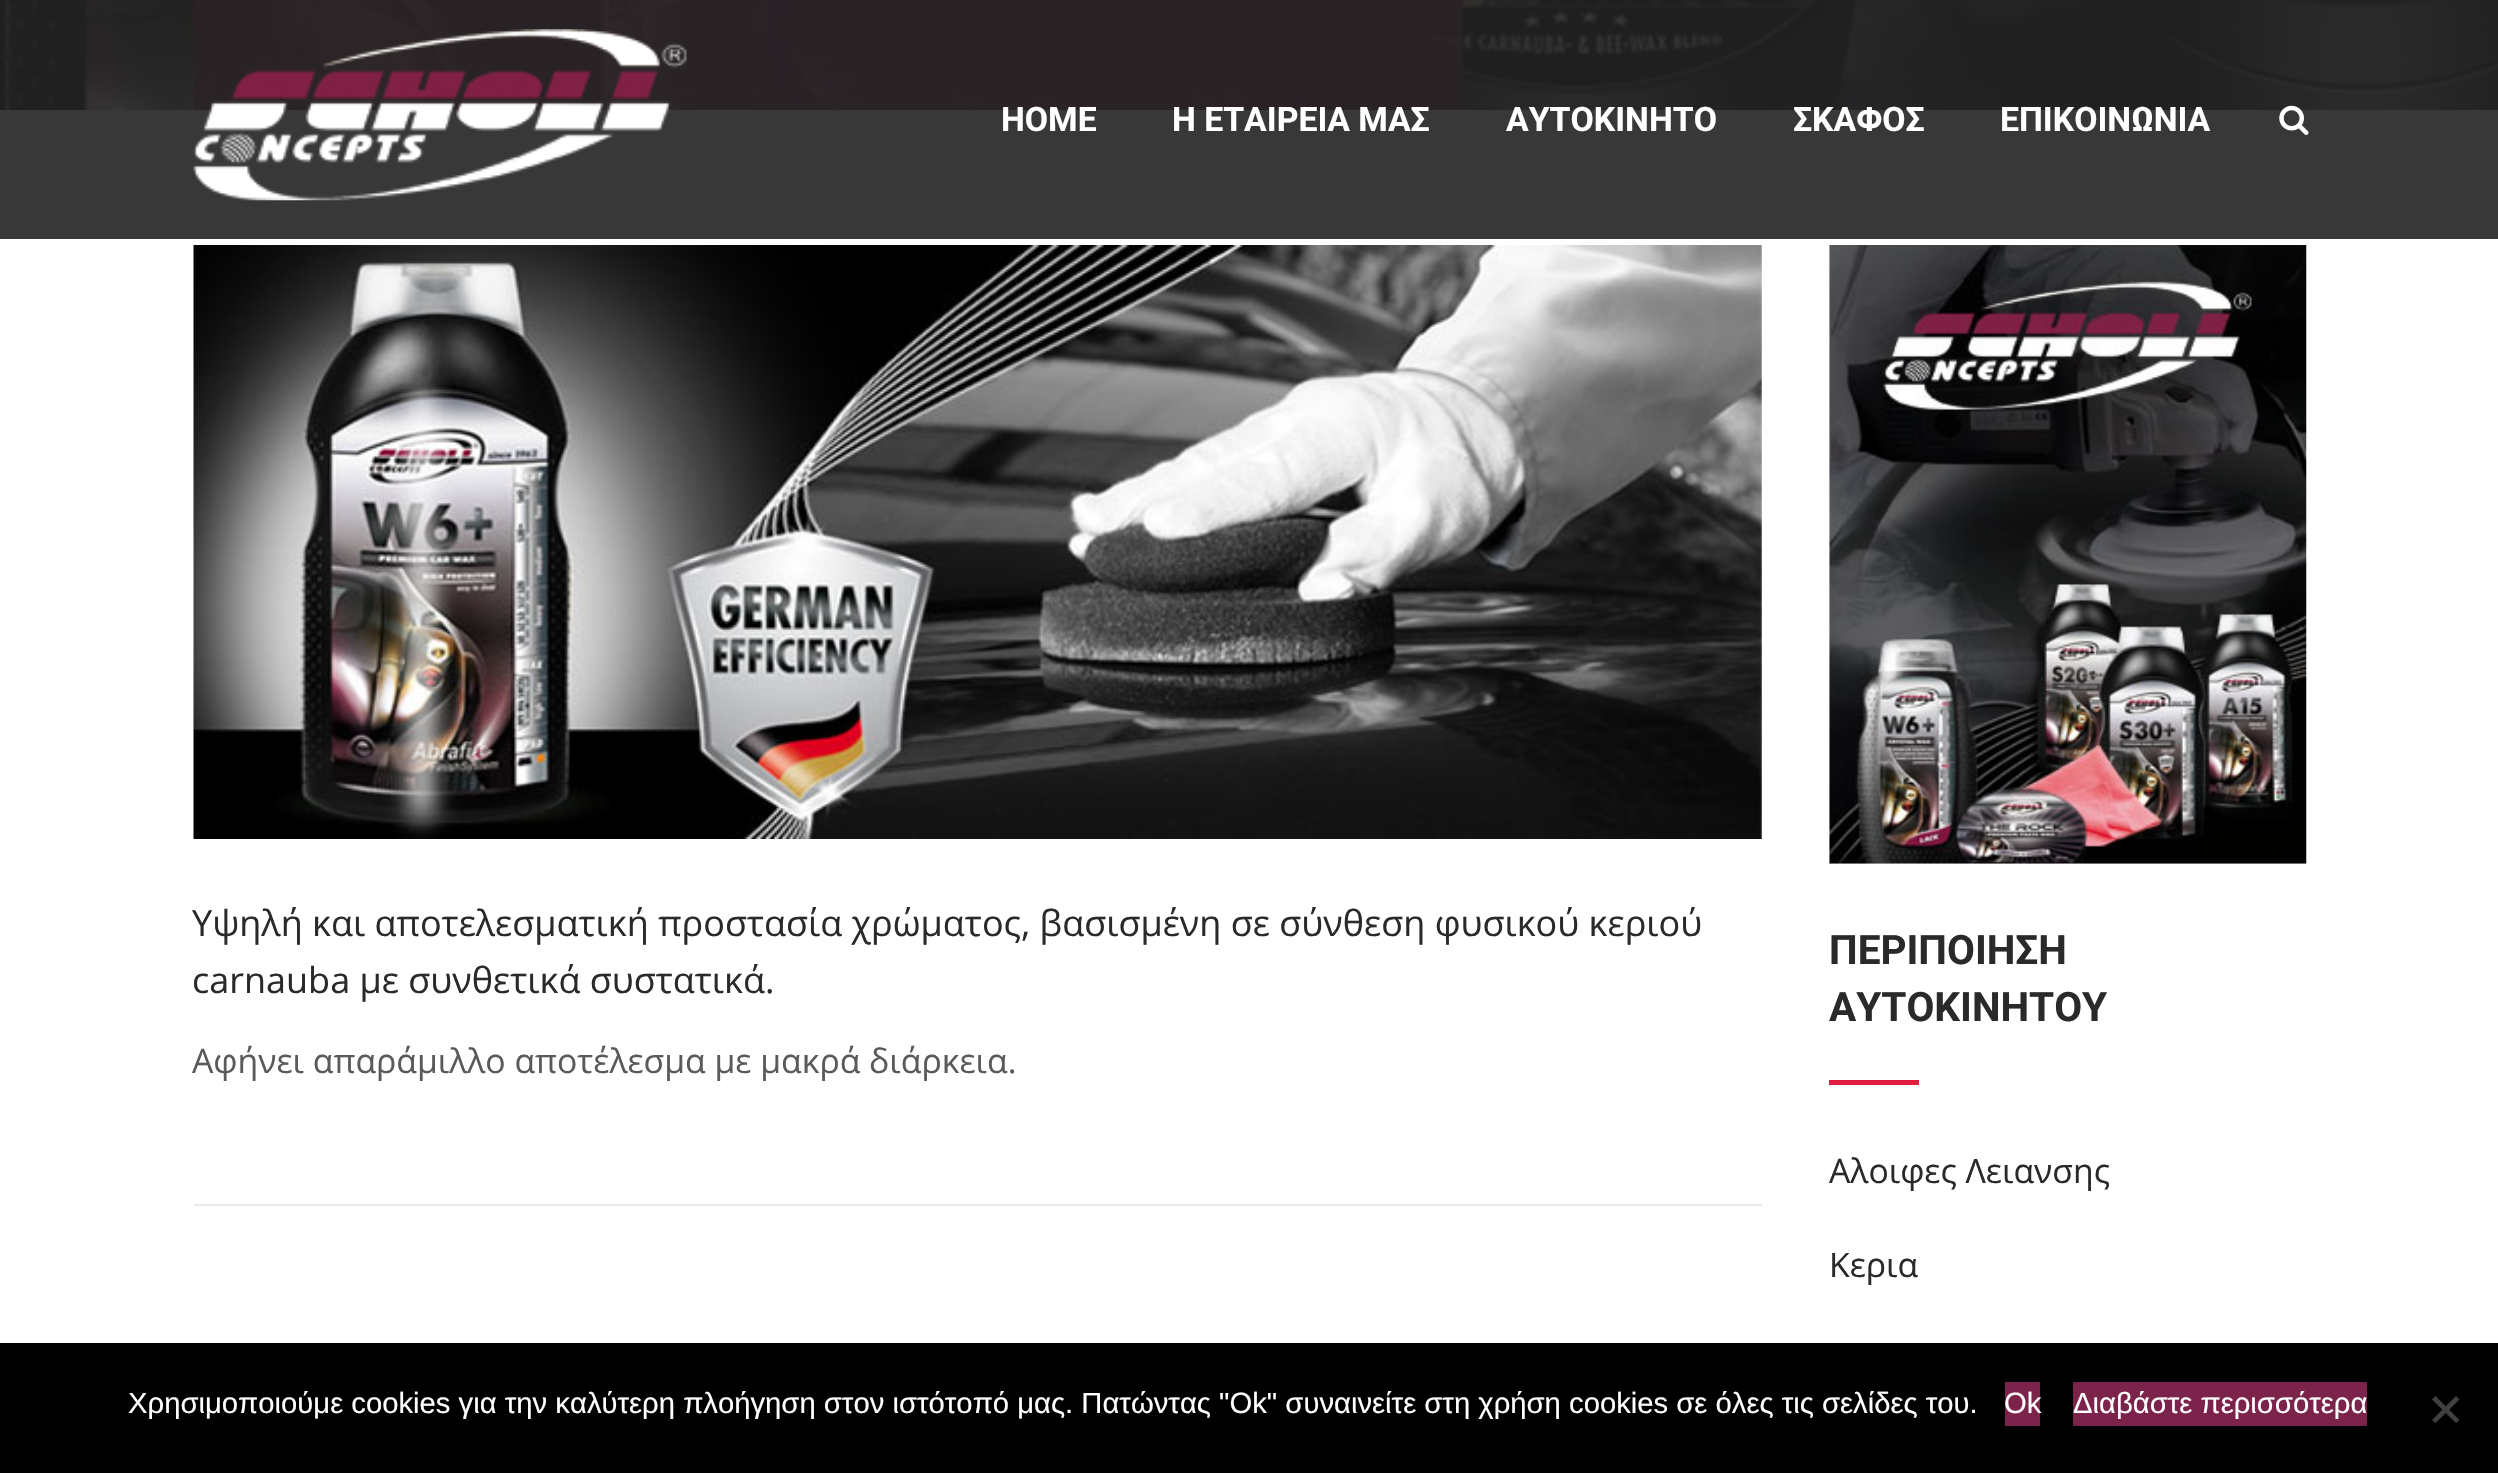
void draw(SkCanvas* canvas) {
    SkPaint paint;
    paint.setAntiAlias(true);
    canvas->clear(0xFFFFFFFF);
    paint.setColor(0xFF383838);
    canvas->drawRect(SkRect::MakeXYWH(0, 110, 2498, 129), paint);
    canvas->drawImageRect(SkImages::DeferredFromEncodedData(SkData::MakeFromFileName("img3.png")), SkRect::MakeXYWH(0, 0, 2498, 110), SkSamplingOptions());
    paint.setColor(0xCC2B2226);
    canvas->drawRect(SkRect::MakeXYWH(194, 0, 1269, 110), paint);
    canvas->drawImageRect(SkImages::DeferredFromEncodedData(SkData::MakeFromFileName("img1.png")), SkRect::MakeXYWH(193, 29, 494, 172), SkSamplingOptions());
    SkFont font1(fontMgr->matchFamilyStyle("Roboto", SkFontStyle::Bold()), 33.75f);
    font1.setSubpixel(true);
    paint.setColor(0xFFFFFFFF);
    canvas->drawString("HOME", 1001, 131, font1, paint);
    canvas->drawString("Η ΕΤΑΙΡΕΙΑ ΜΑΣ", 1172, 131, font1, paint);
    canvas->drawString("ΑΥΤΟΚΙΝΗΤΟ", 1506, 131, font1, paint);
    canvas->drawString("ΣΚΑΦΟΣ", 1793, 131, font1, paint);
    canvas->drawString("ΕΠΙΚΟΙΝΩΝΙΑ", 2000, 131, font1, paint);
    canvas->drawImageRect(SkImages::DeferredFromEncodedData(SkData::MakeFromFileName("img2.png")), SkRect::MakeXYWH(2279, 105, 30, 30), SkSamplingOptions());
    paint.setColor(0xFFE9E9E9);
    canvas->drawRect(SkRect::MakeXYWH(194, 1204, 1568, 2), paint);
    canvas->drawImageRect(SkImages::DeferredFromEncodedData(SkData::MakeFromFileName("img4.png")), SkRect::MakeXYWH(193, 245, 1569, 594), SkSamplingOptions());
    SkFont font2(fontMgr->matchFamilyStyle("Open Sans", SkFontStyle::Normal()), 36);
    font2.setSubpixel(true);
    paint.setColor(0xFF2A2A2A);
    canvas->drawString("Υψηλή και αποτελεσματική προστασία χρώματος, βασισμένη σε σύνθεση φυσικού κεριού", 192, 936, font2, paint);
    canvas->drawString("carnauba με συνθετικά συστατικά.", 192, 993, font2, paint);
    SkFont font3(fontMgr->matchFamilyStyle("Open Sans", SkFontStyle::Normal()), 33.75f);
    font3.setSubpixel(true);
    paint.setColor(0xFF5A5A5A);
    canvas->drawString("Αφήνει απαράμιλλο αποτέλεσμα με μακρά διάρκεια.", 192, 1073, font3, paint);
    canvas->drawImageRect(SkImages::DeferredFromEncodedData(SkData::MakeFromFileName("img5.png")), SkRect::MakeXYWH(1829, 245, 478, 619), SkSamplingOptions());
    SkFont font4(fontMgr->matchFamilyStyle("Roboto", SkFontStyle::Bold()), 40.5f);
    font4.setSubpixel(true);
    paint.setColor(0xFF2A2A2A);
    canvas->drawString("ΠΕΡΙΠΟΙΗΣΗ", 1829, 964, font4, paint);
    canvas->drawString("ΑΥΤΟΚΙΝΗΤΟΥ", 1829, 1021, font4, paint);
    paint.setColor(0xFFDF1F3D);
    canvas->drawRect(SkRect::MakeXYWH(1829, 1080, 90, 5), paint);
    paint.setColor(0xFF2A2A2A);
    canvas->drawString("Αλοιφες Λειανσης", 1829, 1183, font3, paint);
    canvas->drawString("Κερια", 1829, 1277, font3, paint);
    paint.setColor(0xFF000000);
    canvas->drawRect(SkRect::MakeXYWH(0, 1343, 2498, 130), paint);
    SkFont font5(fontMgr->matchFamilyStyle("Liberation Sans", SkFontStyle::Normal()), 29.25f);
    font5.setSubpixel(true);
    paint.setColor(0xFFFFFFFF);
    canvas->drawString("Χρησιμοποιούμε cookies για την καλύτερη πλοήγηση στον ιστότοπό μας. Πατώντας \"Οk\" συναινείτε στη χρήση cookies σε όλες τις σελίδες του.", 128, 1413, font5, paint);
    paint.setColor(0xFF7B234A);
    canvas->drawRect(SkRect::MakeXYWH(2005, 1382, 35, 44), paint);
    paint.setColor(0xFFFFFFFF);
    canvas->drawString("Ok", 2004, 1413, font5, paint);
    paint.setColor(0xFF7B234A);
    canvas->drawRect(SkRect::MakeXYWH(2073, 1382, 294, 44), paint);
    paint.setColor(0xFFFFFFFF);
    canvas->drawString("Διαβάστε περισσότερα", 2073, 1413, font5, paint);
    paint.setColor(0xFF404040);
    canvas->drawPath(SkPathBuilder().moveTo(2456, 1396).lineTo(2459.5f, 1399.5f).lineTo(2435.5f, 1423).lineTo(2432, 1420).close().detach(), paint);
    canvas->drawPath(SkPathBuilder().moveTo(2432, 1399.5f).lineTo(2435.5f, 1396).lineTo(2459.5f, 1420).lineTo(2456, 1423).close().detach(), paint);
}
